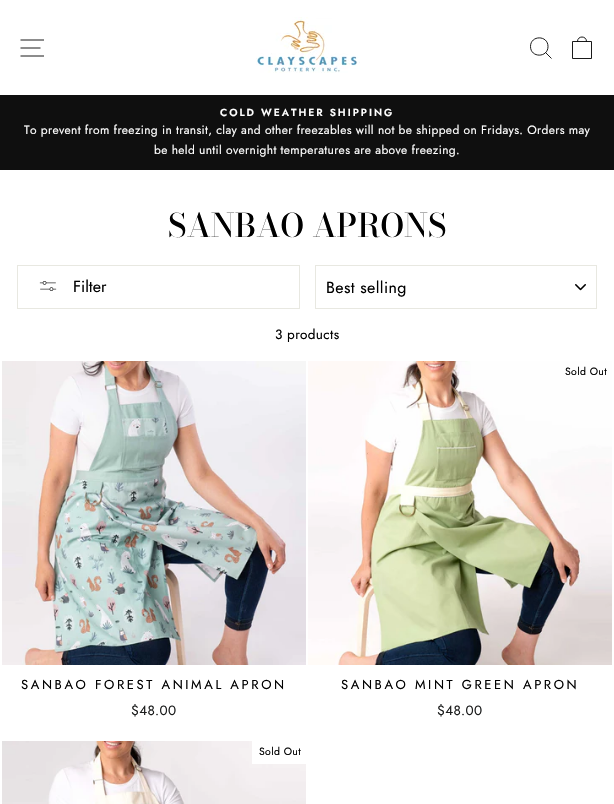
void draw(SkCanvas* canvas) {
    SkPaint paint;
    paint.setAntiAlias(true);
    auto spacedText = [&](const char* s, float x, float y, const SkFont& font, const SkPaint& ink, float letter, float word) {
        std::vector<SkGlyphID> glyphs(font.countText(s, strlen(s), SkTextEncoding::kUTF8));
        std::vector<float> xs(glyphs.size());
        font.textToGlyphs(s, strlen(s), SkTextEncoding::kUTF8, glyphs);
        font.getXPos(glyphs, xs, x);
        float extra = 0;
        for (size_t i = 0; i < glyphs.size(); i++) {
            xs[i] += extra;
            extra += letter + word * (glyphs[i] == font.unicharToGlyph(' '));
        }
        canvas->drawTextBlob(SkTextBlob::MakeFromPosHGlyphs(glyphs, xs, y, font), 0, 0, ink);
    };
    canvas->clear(0xFFFFFFFF);
    paint.setStyle(SkPaint::kStroke_Style);
    paint.setStrokeWidth(0.9f);
    paint.setColor(0xFF000000);
    canvas->drawPath(SkPathBuilder().moveTo(20.5f, 40).lineTo(44, 40).moveTo(20.5f, 48).lineTo(40.5f, 48).moveTo(20.5f, 56).lineTo(44, 56).detach(), paint);
    canvas->drawImageRect(SkImages::DeferredFromEncodedData(SkData::MakeFromFileName("img1.png")), SkRect::MakeXYWH(256, 17, 104, 56), SkSamplingOptions());
    canvas->drawPath(SkPathBuilder().moveTo(548, 46.5f).cubicTo(548, 58, 530.5f, 58, 530.5f, 46.5f).cubicTo(530.5f, 35, 548, 35, 548, 46.5f).close().moveTo(551.5f, 58.5f).lineTo(545.5f, 52.5f).moveTo(572.5f, 41.5f).lineTo(591.5f, 41.5f).lineTo(591.5f, 58.5f).lineTo(572.5f, 58.5f).close().moveTo(577.5f, 41.5f).cubicTo(577.5f, 35.5f, 586.5f, 35.5f, 586.5f, 41.5f).detach(), paint);
    paint.setStyle(SkPaint::kFill_Style);
    paint.setColor(0xFF0F0F0F);
    canvas->drawRect(SkRect::MakeXYWH(0, 95, 614, 75), paint);
    SkFont font1(fontMgr->matchFamilyStyle("Jost", SkFontStyle(600, SkFontStyle::kNormal_Width, SkFontStyle::kUpright_Slant)), 10.25f);
    font1.setSubpixel(true);
    paint.setColor(0xFFFFFFFF);
    spacedText("COLD WEATHER SHIPPING", 220, 116, font1, paint, 2, 0);
    SkFont font2(fontMgr->matchFamilyStyle("Jost", SkFontStyle::Normal()), 12);
    font2.setSubpixel(true);
    spacedText("To prevent from freezing in transit, clay and other freezables will not be shipped on Fridays. Orders may", 24, 134, font2, paint, 0.34f, 0);
    spacedText("be held until overnight temperatures are above freezing.", 154, 154, font2, paint, 0.34f, 0);
    SkFont font3(fontMgr->matchFamilyStyle("Bodoni Moda", SkFontStyle(500, SkFontStyle::kNormal_Width, SkFontStyle::kUpright_Slant)), 32.25f);
    font3.setSubpixel(true);
    paint.setColor(0xFF000000);
    canvas->drawString("SANBAO APRONS", 168, 237, font3, paint);
    paint.setStyle(SkPaint::kStroke_Style);
    paint.setStrokeWidth(1);
    paint.setColor(0xFFE8E8E1);
    canvas->drawRect(SkRect::MakeXYWH(17.5f, 265.5f, 282, 43), paint);
    canvas->drawImageRect(SkImages::DeferredFromEncodedData(SkData::MakeFromFileName("img2.png")), SkRect::MakeXYWH(39, 281, 18, 10), SkSamplingOptions());
    SkFont font4(fontMgr->matchFamilyStyle("Jost", SkFontStyle::Normal()), 16);
    font4.setSubpixel(true);
    paint.setStyle(SkPaint::kFill_Style);
    paint.setColor(0xFF000000);
    canvas->drawString("Filter", 73, 292, font4, paint);
    canvas->drawImageRect(SkImages::DeferredFromEncodedData(SkData::MakeFromFileName("img3.png")), SkRect::MakeXYWH(575, 284, 11, 7), SkSamplingOptions());
    paint.setStyle(SkPaint::kStroke_Style);
    paint.setColor(0xFFE8E8E1);
    canvas->drawRect(SkRect::MakeXYWH(315.5f, 265.5f, 281, 43), paint);
    paint.setStyle(SkPaint::kFill_Style);
    paint.setColor(0xFF000000);
    spacedText("Best selling", 326, 293, font4, paint, 0.4f, 0);
    SkFont font5(fontMgr->matchFamilyStyle("Jost", SkFontStyle::Normal()), 13.5f);
    font5.setSubpixel(true);
    spacedText("3 products", 275, 339, font5, paint, 0.34f, 0);
    canvas->drawImageRect(SkImages::DeferredFromEncodedData(SkData::MakeFromFileName("img4.png")), SkRect::MakeXYWH(2, 361, 304, 304), SkSamplingOptions());
    SkFont font6(fontMgr->matchFamilyStyle("Jost", SkFontStyle::Normal()), 13);
    font6.setSubpixel(true);
    spacedText("SANBAO FOREST ANIMAL APRON", 21, 689, font6, paint, 2.6f, 0);
    paint.setColor(0xFF1C1D1D);
    spacedText("$48.00", 131, 715, font5, paint, 0.34f, 0);
    canvas->drawImageRect(SkImages::DeferredFromEncodedData(SkData::MakeFromFileName("img5.png")), SkRect::MakeXYWH(308, 361, 304, 304), SkSamplingOptions());
    SkFont font7(fontMgr->matchFamilyStyle("Jost", SkFontStyle::Normal()), 10.5f);
    font7.setSubpixel(true);
    paint.setColor(0xFF000000);
    spacedText("Sold Out", 565, 375, font7, paint, 0.34f, 0);
    spacedText("SANBAO MINT GREEN APRON", 341, 689, font6, paint, 2.6f, 0);
    paint.setColor(0xFF1C1D1D);
    spacedText("$48.00", 437, 715, font5, paint, 0.34f, 0);
    canvas->drawImageRect(SkImages::DeferredFromEncodedData(SkData::MakeFromFileName("img6.png")), SkRect::MakeXYWH(2, 741, 304, 63), SkSamplingOptions());
    paint.setColor(0xFFFFFFFF);
    canvas->drawRect(SkRect::MakeXYWH(252, 741, 54, 23), paint);
    paint.setColor(0xFF000000);
    spacedText("Sold Out", 259, 755, font7, paint, 0.34f, 0);
}
